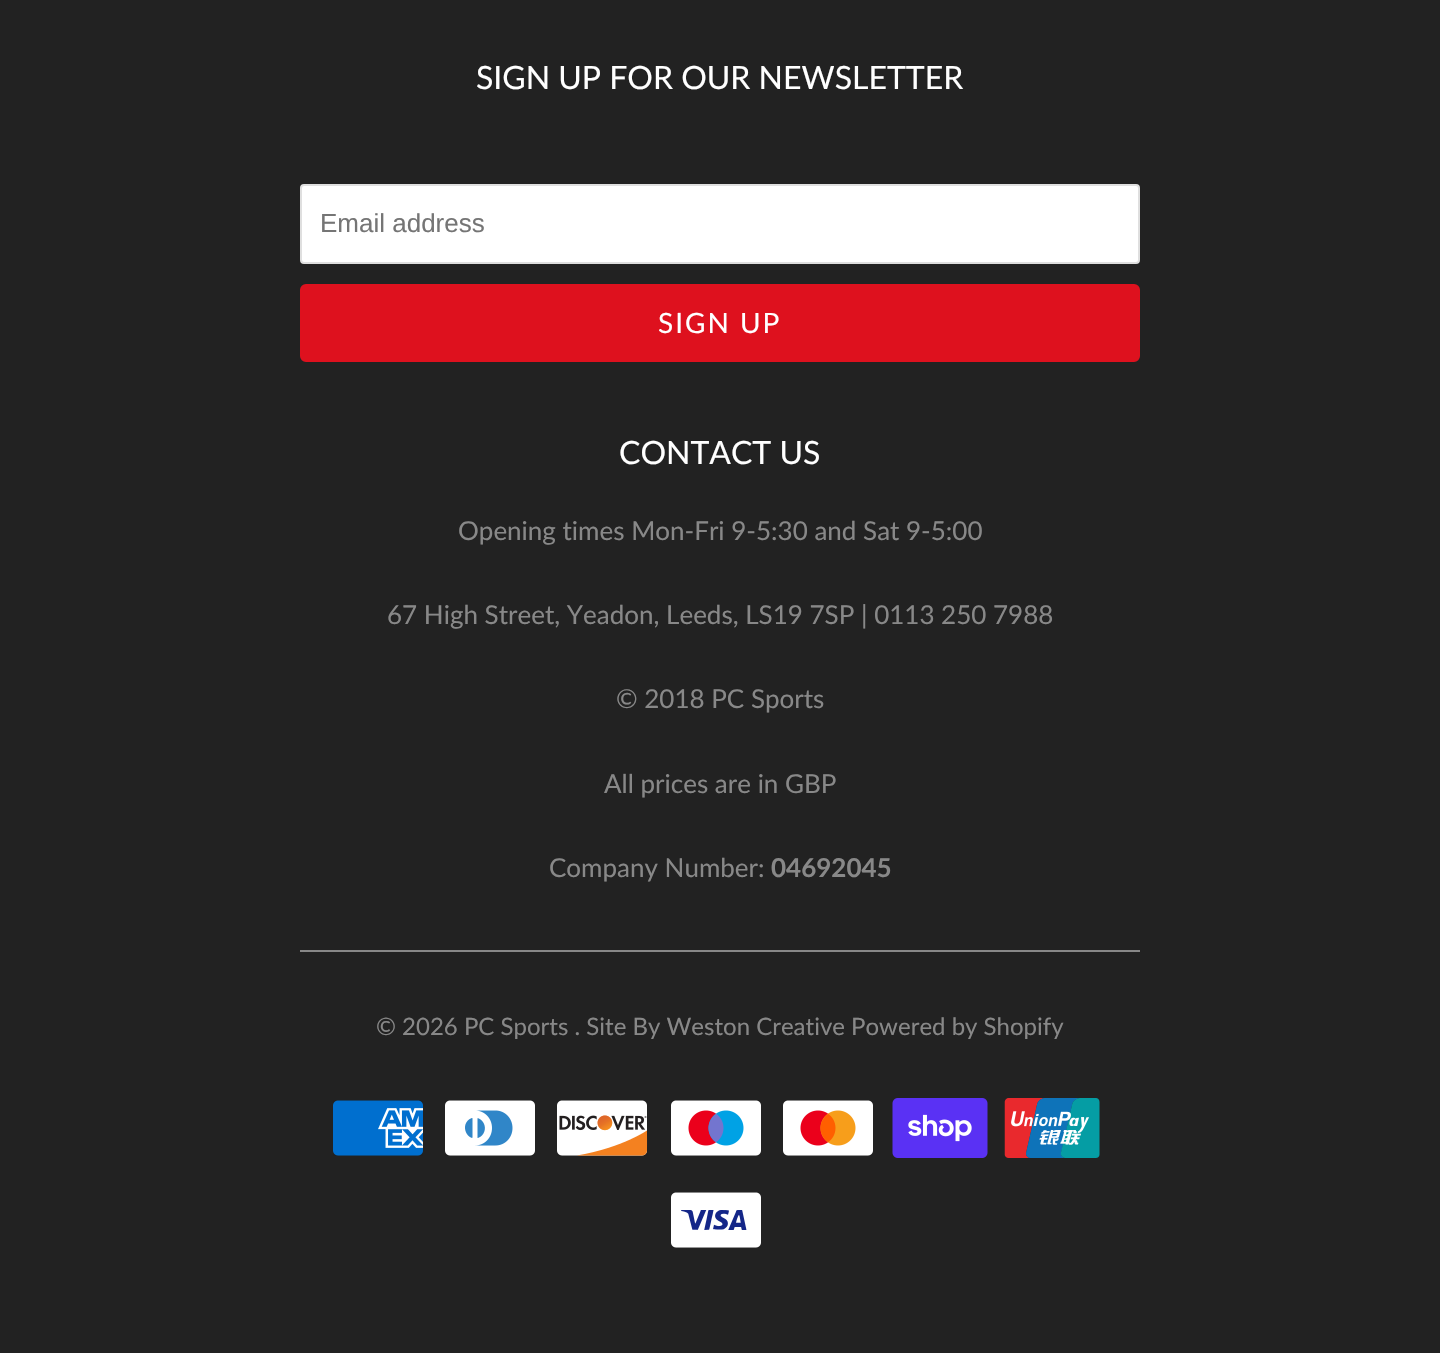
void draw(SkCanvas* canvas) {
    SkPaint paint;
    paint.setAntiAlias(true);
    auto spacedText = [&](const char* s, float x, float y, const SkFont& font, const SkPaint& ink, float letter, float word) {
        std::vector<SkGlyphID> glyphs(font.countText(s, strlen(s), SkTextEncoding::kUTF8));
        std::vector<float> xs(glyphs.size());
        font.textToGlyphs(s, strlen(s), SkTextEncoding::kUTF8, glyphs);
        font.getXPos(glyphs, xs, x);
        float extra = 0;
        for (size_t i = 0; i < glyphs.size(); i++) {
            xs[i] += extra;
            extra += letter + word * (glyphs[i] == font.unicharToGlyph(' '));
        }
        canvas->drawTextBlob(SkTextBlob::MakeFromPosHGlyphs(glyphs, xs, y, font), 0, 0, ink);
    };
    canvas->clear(0xFF222222);
    SkFont font1(fontMgr->matchFamilyStyle("Lato", SkFontStyle::Normal()), 32);
    font1.setSubpixel(true);
    paint.setColor(0xFFFFFFFF);
    canvas->drawString("SIGN UP FOR OUR NEWSLETTER", 476, 89, font1, paint);
    canvas->drawRoundRect(SkRect::MakeXYWH(301, 185, 838, 78), 3, 3, paint);
    paint.setStyle(SkPaint::kStroke_Style);
    paint.setStrokeWidth(2);
    paint.setColor(0xFFDFDFDF);
    canvas->drawRoundRect(SkRect::MakeXYWH(301, 185, 838, 78), 3, 3, paint);
    SkFont font2(fontMgr->matchFamilyStyle("Liberation Sans", SkFontStyle::Normal()), 26);
    font2.setSubpixel(true);
    paint.setStyle(SkPaint::kFill_Style);
    paint.setColor(0xFF757575);
    canvas->drawString("Email address", 320, 232, font2, paint);
    paint.setColor(0xFFDE111E);
    canvas->drawRoundRect(SkRect::MakeXYWH(301, 285, 838, 76), 5, 5, paint);
    paint.setStyle(SkPaint::kStroke_Style);
    canvas->drawRoundRect(SkRect::MakeXYWH(301, 285, 838, 76), 5, 5, paint);
    SkFont font3(fontMgr->matchFamilyStyle("Lato", SkFontStyle::Normal()), 28);
    font3.setSubpixel(true);
    paint.setStyle(SkPaint::kFill_Style);
    paint.setColor(0xFFFFFFFF);
    spacedText("SIGN UP", 658, 333, font3, paint, 2, 0);
    canvas->drawString("CONTACT US", 619, 464, font1, paint);
    SkFont font4(fontMgr->matchFamilyStyle("Lato", SkFontStyle::Normal()), 26);
    font4.setSubpixel(true);
    paint.setColor(0xFF888888);
    canvas->drawString("Opening times Mon-Fri 9-5:30 and Sat 9-5:00", 458, 540, font4, paint);
    canvas->drawString("67 High Street, Yeadon, Leeds, LS19 7SP | 0113 250 7988", 387, 624, font4, paint);
    canvas->drawString("© 2018 PC Sports", 616, 708, font4, paint);
    canvas->drawString("All prices are in GBP", 604, 793, font4, paint);
    canvas->drawString("Company Number:", 549, 877, font4, paint);
    SkFont font5(fontMgr->matchFamilyStyle("Lato", SkFontStyle::Bold()), 26);
    font5.setSubpixel(true);
    canvas->drawString("04692045", 771, 877, font5, paint);
    canvas->drawRect(SkRect::MakeXYWH(300, 950, 840, 2), paint);
    SkFont font6(fontMgr->matchFamilyStyle("Lato", SkFontStyle::Normal()), 24);
    font6.setSubpixel(true);
    canvas->drawString("© 2026 PC Sports . Site By Weston Creative Powered by Shopify", 376, 1035, font6, paint);
    canvas->drawImageRect(SkImages::DeferredFromEncodedData(SkData::MakeFromFileName("img1.png")), SkRect::MakeXYWH(333, 1100, 90, 56), SkSamplingOptions());
    canvas->drawImageRect(SkImages::DeferredFromEncodedData(SkData::MakeFromFileName("img2.png")), SkRect::MakeXYWH(445, 1100, 90, 56), SkSamplingOptions());
    canvas->drawImageRect(SkImages::DeferredFromEncodedData(SkData::MakeFromFileName("img3.png")), SkRect::MakeXYWH(557, 1100, 91, 56), SkSamplingOptions());
    canvas->drawImageRect(SkImages::DeferredFromEncodedData(SkData::MakeFromFileName("img4.png")), SkRect::MakeXYWH(671, 1100, 90, 56), SkSamplingOptions());
    canvas->drawImageRect(SkImages::DeferredFromEncodedData(SkData::MakeFromFileName("img5.png")), SkRect::MakeXYWH(783, 1100, 90, 56), SkSamplingOptions());
    canvas->drawImageRect(SkImages::DeferredFromEncodedData(SkData::MakeFromFileName("img6.png")), SkRect::MakeXYWH(892, 1098, 96, 60), SkSamplingOptions());
    canvas->drawImageRect(SkImages::DeferredFromEncodedData(SkData::MakeFromFileName("img7.png")), SkRect::MakeXYWH(1004, 1098, 96, 60), SkSamplingOptions());
    canvas->drawImageRect(SkImages::DeferredFromEncodedData(SkData::MakeFromFileName("img8.png")), SkRect::MakeXYWH(671, 1192, 90, 56), SkSamplingOptions());
}
